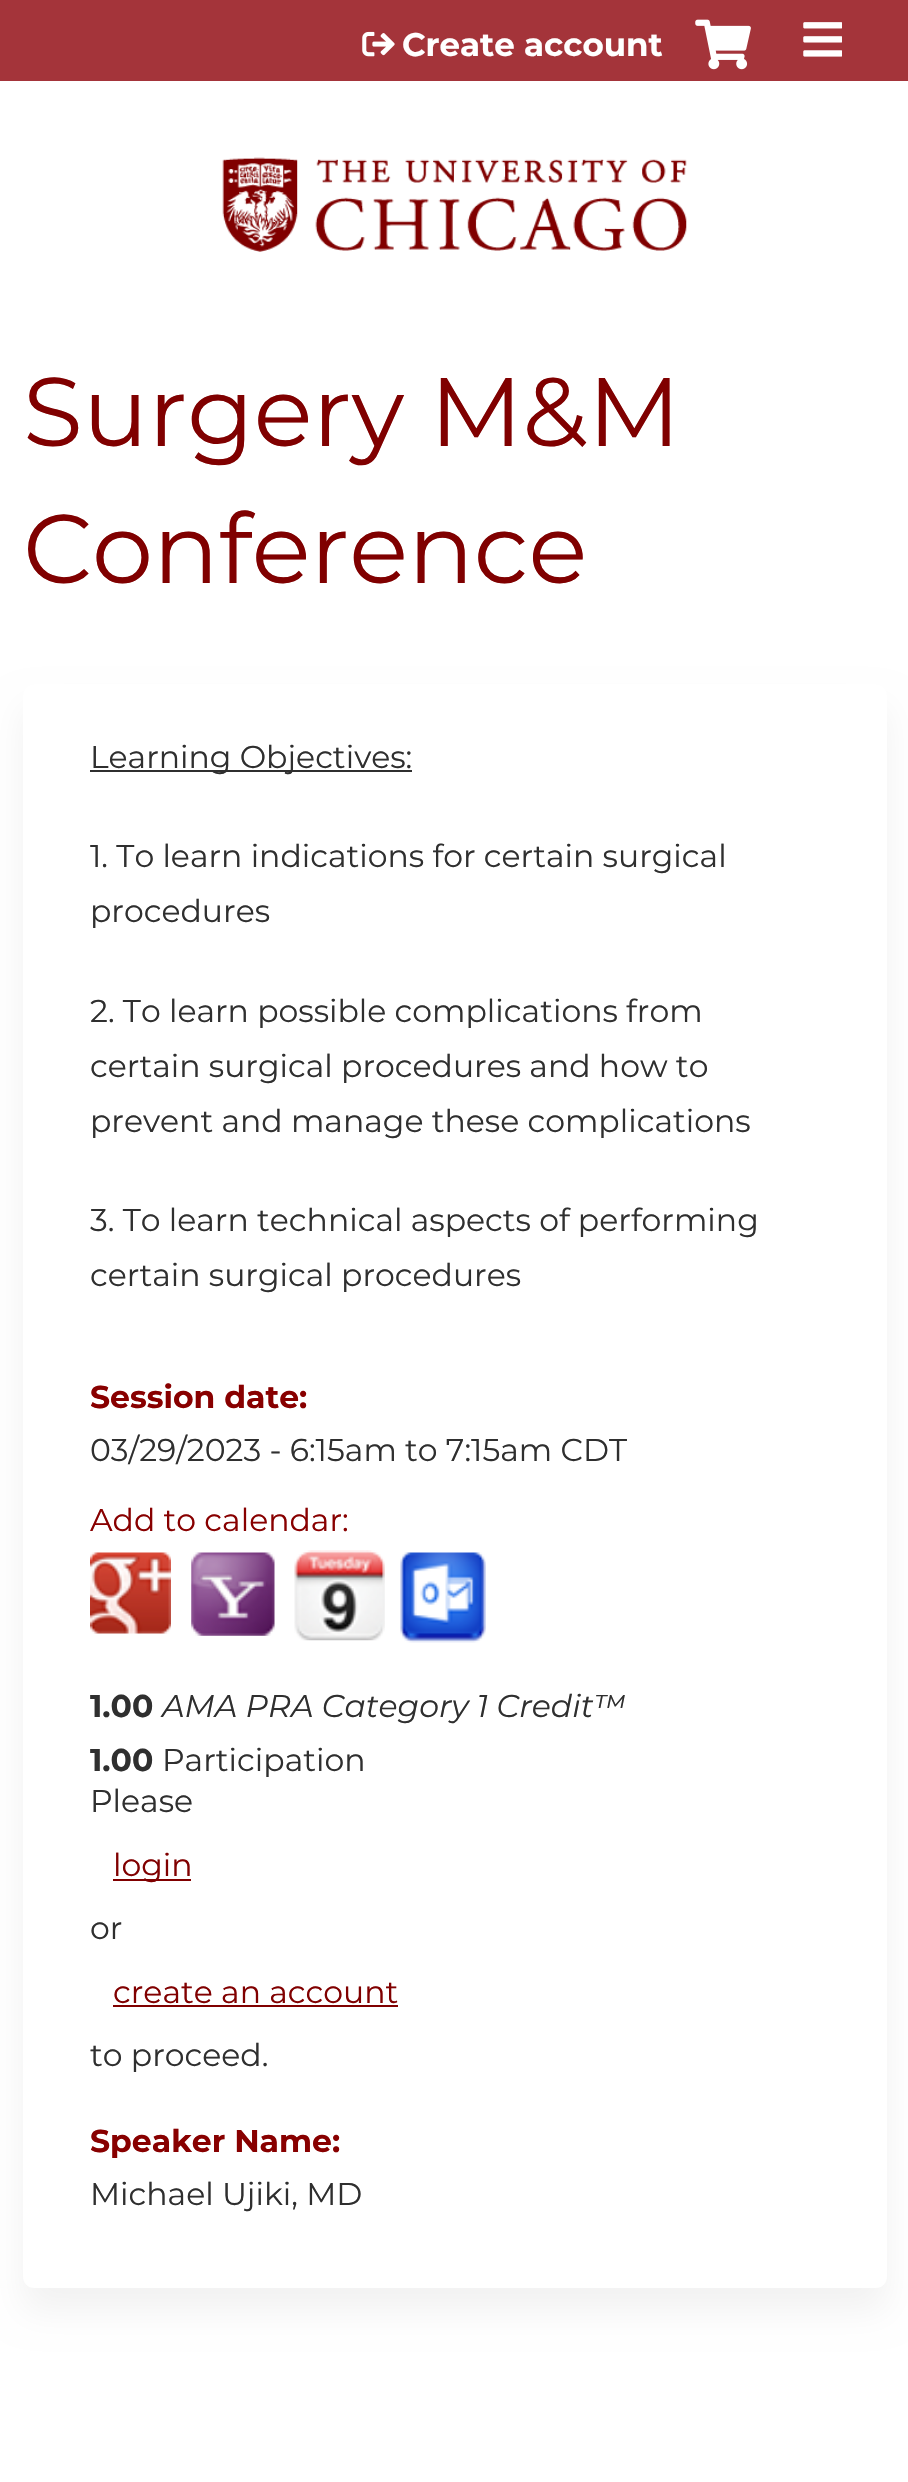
void draw(SkCanvas* canvas) {
    SkPaint paint;
    paint.setAntiAlias(true);
    canvas->clear(0xFFFFFFFF);
    paint.setColor(0xFFA4343A);
    canvas->drawRect(SkRect::MakeXYWH(0, 0, 908, 81), paint);
    canvas->drawImageRect(SkImages::DeferredFromEncodedData(SkData::MakeFromFileName("img1.png")), SkRect::MakeXYWH(362, 31, 33, 26), SkSamplingOptions());
    SkFont font1(fontMgr->matchFamilyStyle("Montserrat", SkFontStyle::Bold()), 32.5f);
    font1.setSubpixel(true);
    paint.setColor(0xFFFFFFFF);
    canvas->drawString("Create account", 402, 56, font1, paint);
    canvas->drawImageRect(SkImages::DeferredFromEncodedData(SkData::MakeFromFileName("img2.png")), SkRect::MakeXYWH(695, 19, 56, 51), SkSamplingOptions());
    canvas->drawImageRect(SkImages::DeferredFromEncodedData(SkData::MakeFromFileName("img3.png")), SkRect::MakeXYWH(803, 22, 39, 35), SkSamplingOptions());
    canvas->drawImageRect(SkImages::DeferredFromEncodedData(SkData::MakeFromFileName("img4.png")), SkRect::MakeXYWH(222, 157, 465, 95), SkSamplingOptions());
    SkFont font2(fontMgr->matchFamilyStyle("Montserrat", SkFontStyle::Normal()), 97.25f);
    font2.setSubpixel(true);
    paint.setColor(0xFF800000);
    canvas->drawString("Surgery M&M", 23, 446, font2, paint);
    canvas->drawString("Conference", 23, 583, font2, paint);
    paint.setColor(0x0D000000);
    paint.setMaskFilter(SkMaskFilter::MakeBlur(kNormal_SkBlurStyle, 17));
    canvas->drawRoundRect(SkRect::MakeXYWH(23, 707, 864, 1604), 11, 11, paint);
    paint.setMaskFilter(nullptr);
    paint.setColor(0xFFFFFFFF);
    canvas->drawRoundRect(SkRect::MakeXYWH(23, 684, 864, 1604), 11, 11, paint);
    paint.setColor(0xFF2F2F2F);
    canvas->drawRect(SkRect::MakeXYWH(90, 770, 322, 2), paint);
    SkFont font3(fontMgr->matchFamilyStyle("Montserrat", SkFontStyle::Normal()), 31.5f);
    font3.setSubpixel(true);
    canvas->drawString("Learning Objectives:", 90, 768, font3, paint);
    canvas->drawString("1. To learn indications for certain surgical", 90, 867, font3, paint);
    canvas->drawString("procedures", 90, 922, font3, paint);
    canvas->drawString("2. To learn possible complications from", 90, 1022, font3, paint);
    canvas->drawString("certain surgical procedures and how to", 90, 1077, font3, paint);
    canvas->drawString("prevent and manage these complications", 90, 1132, font3, paint);
    canvas->drawString("3. To learn technical aspects of performing", 90, 1231, font3, paint);
    canvas->drawString("certain surgical procedures", 90, 1286, font3, paint);
    SkFont font4(fontMgr->matchFamilyStyle("Montserrat", SkFontStyle::Bold()), 31.5f);
    font4.setSubpixel(true);
    paint.setColor(0xFF880000);
    canvas->drawString("Session date:", 90, 1408, font4, paint);
    paint.setColor(0xFF2F2F2F);
    canvas->drawString("03/29/2023 - 6:15am to 7:15am CDT", 90, 1461, font3, paint);
    paint.setColor(0xFF880000);
    canvas->drawString("Add to calendar:", 90, 1531, font3, paint);
    canvas->drawImageRect(SkImages::DeferredFromEncodedData(SkData::MakeFromFileName("img5.png")), SkRect::MakeXYWH(90, 1552, 81, 82), SkSamplingOptions());
    canvas->drawImageRect(SkImages::DeferredFromEncodedData(SkData::MakeFromFileName("img6.png")), SkRect::MakeXYWH(191, 1552, 84, 84), SkSamplingOptions());
    canvas->drawImageRect(SkImages::DeferredFromEncodedData(SkData::MakeFromFileName("img7.png")), SkRect::MakeXYWH(294, 1550, 91, 91), SkSamplingOptions());
    canvas->drawImageRect(SkImages::DeferredFromEncodedData(SkData::MakeFromFileName("img8.png")), SkRect::MakeXYWH(400, 1552, 86, 91), SkSamplingOptions());
    paint.setColor(0xFF2F2F2F);
    canvas->drawString("1.00", 90, 1717, font4, paint);
    SkFont font5(fontMgr->matchFamilyStyle("Montserrat", SkFontStyle::Italic()), 31.5f);
    font5.setSubpixel(true);
    canvas->drawString("AMA PRA Category 1 Credit™", 162, 1717, font5, paint);
    canvas->drawString("1.00", 90, 1771, font4, paint);
    canvas->drawString("Participation", 162, 1771, font3, paint);
    canvas->drawString("Please", 90, 1812, font3, paint);
    paint.setColor(0xFF800000);
    canvas->drawRect(SkRect::MakeXYWH(113, 1879, 78, 2), paint);
    canvas->drawString("login", 113, 1876, font3, paint);
    paint.setColor(0xFF2F2F2F);
    canvas->drawString("or", 90, 1939, font3, paint);
    paint.setColor(0xFF800000);
    canvas->drawString("create an account", 113, 2003, font3, paint);
    canvas->drawRect(SkRect::MakeXYWH(113, 2005, 285, 2), paint);
    paint.setColor(0xFF2F2F2F);
    canvas->drawString("to proceed.", 90, 2066, font3, paint);
    paint.setColor(0xFF880000);
    canvas->drawString("Speaker Name:", 90, 2152, font4, paint);
    paint.setColor(0xFF2F2F2F);
    canvas->drawString("Michael Ujiki, MD", 90, 2205, font3, paint);
}
